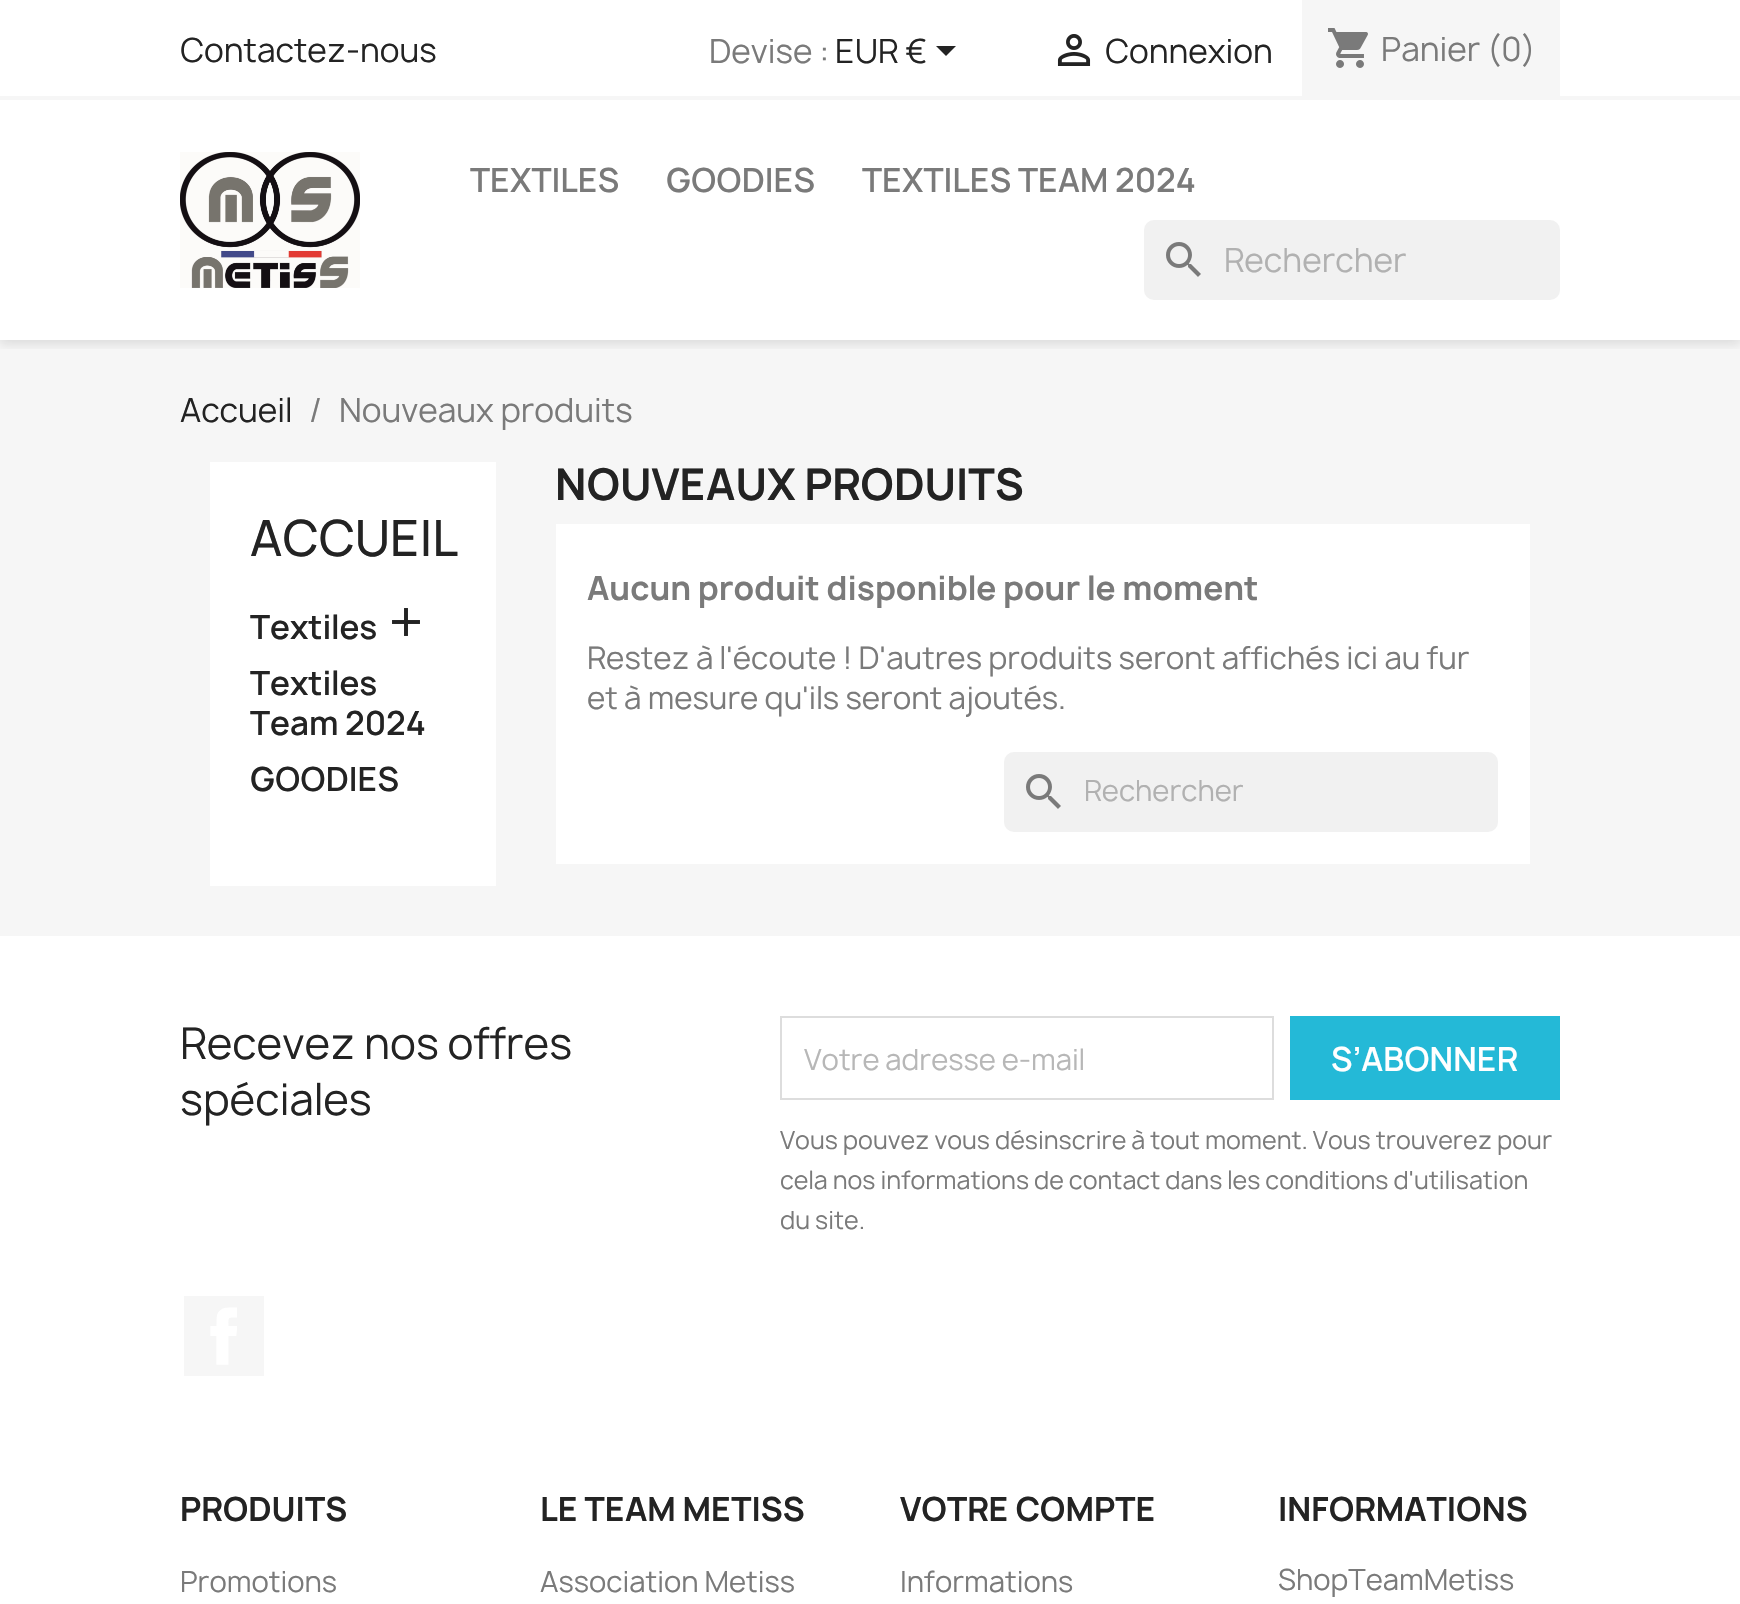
void draw(SkCanvas* canvas) {
    SkPaint paint;
    paint.setAntiAlias(true);
    canvas->clear(0xFFFFFFFF);
    paint.setColor(0xFFF6F6F6);
    canvas->drawRect(SkRect::MakeXYWH(0, 340, 1740, 596), paint);
    canvas->save();
    canvas->clipRect(SkRect::MakeXYWH(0, 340, 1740, 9));
    paint.setColor(0x1C000000);
    paint.setMaskFilter(SkMaskFilter::MakeBlur(kNormal_SkBlurStyle, 5));
    canvas->drawRect(SkRect::MakeXYWH(0, 4, 1740, 340), paint);
    paint.setMaskFilter(nullptr);
    canvas->restore();
    paint.setColor(0xFFF6F6F6);
    canvas->drawRect(SkRect::MakeXYWH(0, 96, 1740, 4), paint);
    SkFont font1(fontMgr->matchFamilyStyle("Manrope", SkFontStyle::Normal()), 32);
    font1.setSubpixel(true);
    paint.setColor(0xFF232323);
    canvas->drawString("Contactez-nous", 180, 62, font1, paint);
    paint.setColor(0xFF7A7A7A);
    canvas->drawString("Devise :", 709, 63, font1, paint);
    paint.setColor(0xFF232323);
    canvas->drawString("EUR €", 835, 63, font1, paint);
    canvas->drawPath(SkPathBuilder().moveTo(936, 46).lineTo(956, 46).lineTo(946, 56).close().detach(), paint);
    canvas->drawImageRect(SkImages::DeferredFromEncodedData(SkData::MakeFromFileName("img1.png")), SkRect::MakeXYWH(1057, 34, 34, 32), SkSamplingOptions());
    canvas->drawString("Connexion", 1105, 63, font1, paint);
    paint.setColor(0xFFF6F6F6);
    canvas->drawRect(SkRect::MakeXYWH(1302, 0, 258, 96), paint);
    canvas->drawImageRect(SkImages::DeferredFromEncodedData(SkData::MakeFromFileName("img2.png")), SkRect::MakeXYWH(1328, 28, 40, 40), SkSamplingOptions());
    paint.setColor(0xFF7A7A7A);
    canvas->drawString("Panier (0)", 1381, 61, font1, paint);
    canvas->drawImageRect(SkImages::DeferredFromEncodedData(SkData::MakeFromFileName("img3.png")), SkRect::MakeXYWH(180, 152, 180, 136), SkSamplingOptions());
    SkFont font2(fontMgr->matchFamilyStyle("Manrope", SkFontStyle(600, SkFontStyle::kNormal_Width, SkFontStyle::kUpright_Slant)), 32);
    font2.setSubpixel(true);
    canvas->drawString("TEXTILES", 470, 192, font2, paint);
    canvas->drawString("GOODIES", 666, 192, font2, paint);
    canvas->drawString("TEXTILES TEAM 2024", 862, 192, font2, paint);
    paint.setColor(0xFFF1F1F1);
    canvas->drawRoundRect(SkRect::MakeXYWH(1144, 220, 416, 80), 10, 10, paint);
    canvas->drawImageRect(SkImages::DeferredFromEncodedData(SkData::MakeFromFileName("img4.png")), SkRect::MakeXYWH(1166, 242, 35, 35), SkSamplingOptions());
    paint.setColor(0xFFB1B1B1);
    canvas->drawString("Rechercher", 1224, 272, font1, paint);
    paint.setColor(0xFF232323);
    canvas->drawString("Accueil", 180, 422, font1, paint);
    paint.setColor(0xFF7A7A7A);
    canvas->drawString("/", 309, 422, font1, paint);
    canvas->drawString("Nouveaux produits", 339, 422, font1, paint);
    paint.setColor(0xFFFFFFFF);
    canvas->drawRect(SkRect::MakeXYWH(210, 462, 286, 424), paint);
    SkFont font3(fontMgr->matchFamilyStyle("Manrope", SkFontStyle(500, SkFontStyle::kNormal_Width, SkFontStyle::kUpright_Slant)), 48);
    font3.setSubpixel(true);
    paint.setColor(0xFF232323);
    canvas->drawString("ACCUEIL", 250, 556, font3, paint);
    canvas->drawString("Textiles", 250, 639, font2, paint);
    canvas->drawImageRect(SkImages::DeferredFromEncodedData(SkData::MakeFromFileName("img5.png")), SkRect::MakeXYWH(392, 608, 28, 28), SkSamplingOptions());
    canvas->drawString("Textiles", 250, 695, font2, paint);
    canvas->drawString("Team 2024", 250, 735, font2, paint);
    canvas->drawString("GOODIES", 250, 791, font2, paint);
    SkFont font4(fontMgr->matchFamilyStyle("Manrope", SkFontStyle::Bold()), 42);
    font4.setSubpixel(true);
    canvas->drawString("NOUVEAUX PRODUITS", 555, 500, font4, paint);
    paint.setColor(0xFFFFFFFF);
    canvas->drawRect(SkRect::MakeXYWH(556, 524, 974, 340), paint);
    SkFont font5(fontMgr->matchFamilyStyle("Manrope", SkFontStyle::Bold()), 32);
    font5.setSubpixel(true);
    paint.setColor(0xFF7A7A7A);
    canvas->drawString("Aucun produit disponible pour le moment", 587, 600, font5, paint);
    SkFont font6(fontMgr->matchFamilyStyle("Manrope", SkFontStyle::Normal()), 30);
    font6.setSubpixel(true);
    canvas->drawString("Restez à l'écoute ! D'autres produits seront affichés ici au fur", 587, 669, font6, paint);
    canvas->drawString("et à mesure qu'ils seront ajoutés.", 587, 709, font6, paint);
    paint.setColor(0xFFF1F1F1);
    canvas->drawRoundRect(SkRect::MakeXYWH(1004, 752, 494, 80), 10, 10, paint);
    canvas->drawImageRect(SkImages::DeferredFromEncodedData(SkData::MakeFromFileName("img4.png")), SkRect::MakeXYWH(1026, 774, 35, 35), SkSamplingOptions());
    SkFont font7(fontMgr->matchFamilyStyle("Manrope", SkFontStyle::Normal()), 28);
    font7.setSubpixel(true);
    paint.setColor(0xFFB1B1B1);
    canvas->drawString("Rechercher", 1084, 801, font7, paint);
    SkFont font8(fontMgr->matchFamilyStyle("Manrope", SkFontStyle::Normal()), 42);
    font8.setSubpixel(true);
    paint.setColor(0xFF232323);
    canvas->drawString("Recevez nos offres", 180, 1059, font8, paint);
    canvas->drawString("spéciales", 180, 1115, font8, paint);
    paint.setStyle(SkPaint::kStroke_Style);
    paint.setStrokeWidth(2);
    paint.setColor(0xFFDDDDDD);
    canvas->drawRect(SkRect::MakeXYWH(781, 1017, 492, 82), paint);
    paint.setStyle(SkPaint::kFill_Style);
    paint.setColor(0xFFB7B7B7);
    canvas->drawString("Votre adresse e-mail", 804, 1070, font7, paint);
    paint.setColor(0xFF24B9D7);
    canvas->drawRect(SkRect::MakeXYWH(1290, 1016, 270, 84), paint);
    paint.setColor(0xFFFFFFFF);
    canvas->drawString("S’ABONNER", 1331, 1071, font2, paint);
    SkFont font9(fontMgr->matchFamilyStyle("Manrope", SkFontStyle::Normal()), 24);
    font9.setSubpixel(true);
    paint.setColor(0xFF7A7A7A);
    canvas->drawString("Vous pouvez vous désinscrire à tout moment. Vous trouverez pour", 780, 1149, font9, paint);
    canvas->drawString("cela nos informations de contact dans les conditions d'utilisation", 780, 1189, font9, paint);
    canvas->drawString("du site.", 780, 1229, font9, paint);
    paint.setColor(0xFFF6F6F6);
    canvas->drawRect(SkRect::MakeXYWH(184, 1296, 80, 80), paint);
    canvas->drawImageRect(SkImages::DeferredFromEncodedData(SkData::MakeFromFileName("img6.png")), SkRect::MakeXYWH(210, 1307, 27, 58), SkSamplingOptions());
    paint.setColor(0xFF232323);
    canvas->drawString("PRODUITS", 180, 1521, font5, paint);
    paint.setColor(0xFF7A7A7A);
    canvas->drawString("Promotions", 180, 1592, font7, paint);
    paint.setColor(0xFF232323);
    canvas->drawString("LE TEAM METISS", 540, 1521, font5, paint);
    paint.setColor(0xFF7A7A7A);
    canvas->drawString("Association Metiss", 540, 1592, font7, paint);
    paint.setColor(0xFF232323);
    canvas->drawString("VOTRE COMPTE", 900, 1521, font5, paint);
    paint.setColor(0xFF7A7A7A);
    canvas->drawString("Informations", 900, 1592, font7, paint);
    paint.setColor(0xFF232323);
    canvas->drawString("INFORMATIONS", 1278, 1521, font5, paint);
    paint.setColor(0xFF7A7A7A);
    canvas->drawString("ShopTeamMetiss", 1278, 1590, font7, paint);
}
